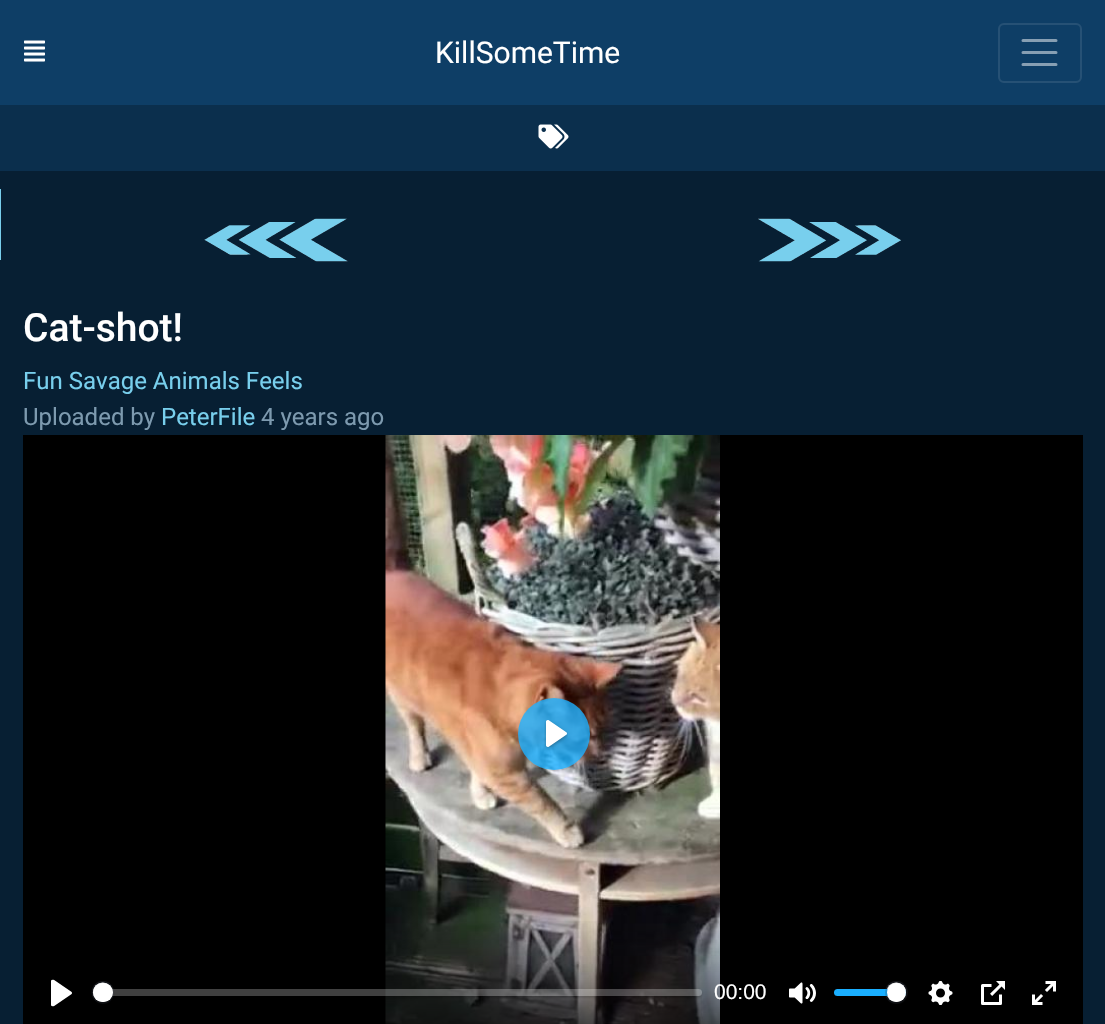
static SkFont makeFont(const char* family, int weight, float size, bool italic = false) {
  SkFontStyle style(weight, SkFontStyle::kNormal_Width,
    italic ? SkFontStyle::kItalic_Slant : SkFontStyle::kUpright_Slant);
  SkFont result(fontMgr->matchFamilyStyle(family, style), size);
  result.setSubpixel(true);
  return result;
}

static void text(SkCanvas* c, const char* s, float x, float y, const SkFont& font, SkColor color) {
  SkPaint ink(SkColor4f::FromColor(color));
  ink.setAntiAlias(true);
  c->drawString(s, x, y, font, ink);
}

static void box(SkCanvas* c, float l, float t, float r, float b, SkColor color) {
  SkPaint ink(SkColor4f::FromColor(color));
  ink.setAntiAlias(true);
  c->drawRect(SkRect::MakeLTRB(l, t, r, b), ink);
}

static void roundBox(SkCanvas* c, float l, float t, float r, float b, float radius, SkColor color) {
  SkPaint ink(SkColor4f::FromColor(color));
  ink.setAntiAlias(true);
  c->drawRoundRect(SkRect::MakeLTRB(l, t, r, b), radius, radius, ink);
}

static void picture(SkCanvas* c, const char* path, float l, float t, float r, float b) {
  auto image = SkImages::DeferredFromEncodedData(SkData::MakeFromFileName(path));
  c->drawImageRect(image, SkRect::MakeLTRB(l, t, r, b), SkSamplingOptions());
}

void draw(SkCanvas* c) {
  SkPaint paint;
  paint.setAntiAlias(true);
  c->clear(0xff071f33);
  box(c, 0, 0, 1105, 105, 0xff0e3e66);
  picture(c, "img_01.png", 24, 40, 45, 62);
  SkFont face1 = makeFont("Roboto", 400, 30);
  text(c, "KillSomeTime", 435, 63, face1, 0xffffffff);
  paint.setStyle(SkPaint::kStroke_Style);
  paint.setStrokeWidth(2);
  paint.setColor(0xff265175);
  c->drawRoundRect(SkRect::MakeLTRB(999, 24, 1081, 82), 5, 5, paint);
  paint.setStrokeWidth(3);
  paint.setStrokeCap(SkPaint::kRound_Cap);
  paint.setColor(0xff879fb3);
  c->drawPath(SkPathBuilder().moveTo(1023, 40.5f).lineTo(1056, 40.5f).moveTo(1023, 52.5f).lineTo(1056, 52.5f).moveTo(1023, 64.5f).lineTo(1056, 64.5f).detach(), paint);
  box(c, 0, 189, 1, 260, 0xff78cfed);
  box(c, 0, 105, 1105, 171, 0xff0b2f4d);
  picture(c, "img_02.png", 538, 124, 569, 149);
  picture(c, "img_03.png", 204, 218, 348, 262);
  picture(c, "img_04.png", 758, 218, 901, 262);
  SkFont face2 = makeFont("Roboto", 500, 39);
  text(c, "Cat-shot!", 23, 341, face2, 0xffffffff);
  SkFont face3 = makeFont("Roboto", 400, 24);
  text(c, "Fun Savage Animals Feels", 23, 389, face3, 0xff78cfed);
  text(c, "Uploaded by", 23, 425, face3, 0xff7d9aaf);
  text(c, "PeterFile", 161, 425, face3, 0xff78cfed);
  text(c, "4 years ago", 261, 425, face3, 0xff7d9aaf);
  box(c, 23, 435, 1083, 1024, 0xff000000);
  picture(c, "img_05.png", 91, 435, 908, 1024);
  c->save();
  c->clipPath(SkPathBuilder(SkPathFillType::kEvenOdd).moveTo(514, 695).lineTo(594, 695).lineTo(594, 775).lineTo(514, 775).close().moveTo(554, 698).cubicTo(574, 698, 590, 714, 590, 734).cubicTo(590, 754, 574, 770, 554, 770).cubicTo(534, 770, 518, 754, 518, 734).cubicTo(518, 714, 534, 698, 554, 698).close().detach(), true);
  paint.setStyle(SkPaint::kFill_Style);
  paint.setColor(0x26000000);
  paint.setMaskFilter(SkMaskFilter::MakeBlur(kNormal_SkBlurStyle, 1));
  c->drawRoundRect(SkRect::MakeLTRB(518, 699, 590, 771), 36, 36, paint);
  paint.setMaskFilter(nullptr);
  c->restore();
  paint.setColor(0xcc1aafff);
  c->drawCircle(554, 734, 36, paint);
  picture(c, "img_06.png", 544, 720, 568, 750);
  {
    const SkColor colors[] = {0x00000000, 0xb3000000};
    const float stops[] = {0, 1};
    const SkPoint ends[] = {{553, 917}, {553, 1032}};
    paint.setShader(SkGradientShader::MakeLinear(ends, colors, stops, 2, SkTileMode::kClamp));
    paint.setAlpha(255);
  }
  c->drawRect(SkRect::MakeLTRB(91, 921, 908, 1024), paint);
  picture(c, "img_07.png", 51, 979, 114, 1007);
  c->save();
  c->clipPath(SkPathBuilder(SkPathFillType::kEvenOdd).moveTo(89, 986).lineTo(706, 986).lineTo(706, 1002).lineTo(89, 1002).close().moveTo(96.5f, 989).lineTo(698.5f, 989).cubicTo(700.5f, 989, 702, 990.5f, 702, 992.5f).cubicTo(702, 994.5f, 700.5f, 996, 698.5f, 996).lineTo(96.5f, 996).cubicTo(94.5f, 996, 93, 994.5f, 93, 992.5f).cubicTo(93, 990.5f, 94.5f, 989, 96.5f, 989).close().detach(), true);
  paint.setShader(nullptr);
  paint.setColor(0x26000000);
  paint.setMaskFilter(SkMaskFilter::MakeBlur(kNormal_SkBlurStyle, 1));
  c->drawRoundRect(SkRect::MakeLTRB(93, 990, 702, 998), 4, 4, paint);
  paint.setMaskFilter(nullptr);
  c->restore();
  roundBox(c, 93, 989, 702, 996, 3.5f, 0x40ffffff);
  paint.setStyle(SkPaint::kStroke_Style);
  paint.setStrokeWidth(2);
  paint.setStrokeCap(SkPaint::kButt_Cap);
  paint.setColor(0x332f343d);
  c->drawRoundRect(SkRect::MakeLTRB(93, 982, 113, 1003), 10, 10, paint);
  paint.setStyle(SkPaint::kFill_Style);
  paint.setColor(0x26000000);
  paint.setMaskFilter(SkMaskFilter::MakeBlur(kNormal_SkBlurStyle, 1));
  c->drawRoundRect(SkRect::MakeLTRB(93, 984, 113, 1004), 10, 10, paint);
  paint.setMaskFilter(nullptr);
  roundBox(c, 93, 983, 113, 1002, 9.5f, 0xffffffff);
  SkFont face4 = makeFont("Liberation Sans", 400, 21);
  text(c, "00:00", 714, 999, face4, 0xffffffff);
  picture(c, "img_08.png", 789, 982, 816, 1004);
  picture(c, "img_09.png", 885, 981, 953, 1005);
  roundBox(c, 834, 989, 906, 996, 3.5f, 0xff1aafff);
  paint.setStyle(SkPaint::kStroke_Style);
  paint.setColor(0x332f343d);
  c->drawCircle(896.5f, 992.5f, 10.5f, paint);
  paint.setStyle(SkPaint::kFill_Style);
  paint.setColor(0x26000000);
  paint.setMaskFilter(SkMaskFilter::MakeBlur(kNormal_SkBlurStyle, 1));
  c->drawRoundRect(SkRect::MakeLTRB(887, 984, 906, 1004), 9.5f, 9.5f, paint);
  paint.setMaskFilter(nullptr);
  paint.setColor(0xffffffff);
  c->drawCircle(896.5f, 992.5f, 9.5f, paint);
  picture(c, "img_10.png", 981, 981, 1005, 1005);
  picture(c, "img_11.png", 1032, 981, 1056, 1005);
}
